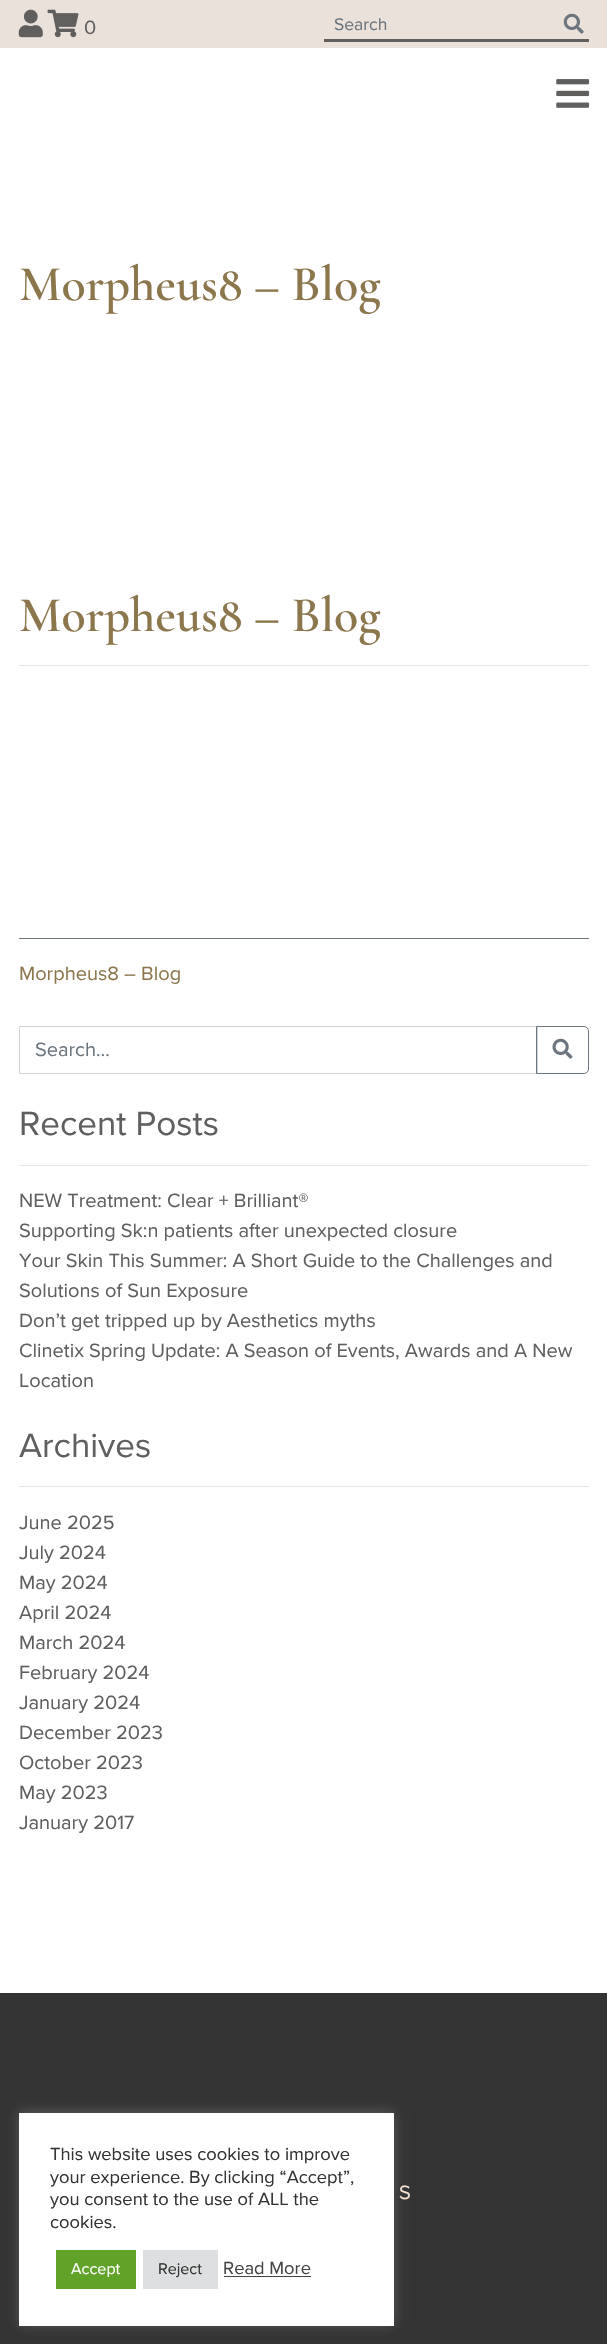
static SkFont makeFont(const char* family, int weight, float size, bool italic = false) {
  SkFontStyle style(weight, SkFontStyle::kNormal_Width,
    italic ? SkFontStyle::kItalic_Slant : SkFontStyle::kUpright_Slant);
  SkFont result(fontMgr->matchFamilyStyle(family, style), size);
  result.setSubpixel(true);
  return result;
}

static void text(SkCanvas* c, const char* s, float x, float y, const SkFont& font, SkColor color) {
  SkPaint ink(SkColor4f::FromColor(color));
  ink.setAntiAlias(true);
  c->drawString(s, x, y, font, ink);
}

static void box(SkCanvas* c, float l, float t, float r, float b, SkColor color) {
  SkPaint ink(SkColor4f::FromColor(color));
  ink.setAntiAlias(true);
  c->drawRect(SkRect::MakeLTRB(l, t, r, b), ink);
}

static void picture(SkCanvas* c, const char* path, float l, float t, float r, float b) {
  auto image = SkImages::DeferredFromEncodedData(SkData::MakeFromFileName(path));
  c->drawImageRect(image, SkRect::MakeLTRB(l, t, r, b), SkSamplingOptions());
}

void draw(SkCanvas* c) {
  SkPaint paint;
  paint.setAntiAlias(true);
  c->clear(0xffffffff);
  box(c, 0, 0, 607, 48, 0xffe9e1da);
  picture(c, "img_01.png", 18, 9, 43, 38);
  picture(c, "img_02.png", 47, 9, 79, 38);
  SkFont face1 = makeFont("Proxima Nova", 400, 20);
  text(c, "0", 84, 34, face1, 0xff615e5e);
  box(c, 324, 39, 589, 42, 0xff615e5e);
  SkFont face2 = makeFont("Proxima Nova", 400, 17.5f);
  text(c, "Search", 334, 30, face2, 0xff6c757d);
  picture(c, "img_03.png", 563, 13, 584, 34);
  picture(c, "img_04.png", 556, 79, 590, 108);
  SkFont face3 = makeFont("Cormorant Garamond", 600, 50);
  text(c, "Morpheus8 – Blog", 19, 300, face3, 0xff8c774d);
  box(c, 19, 938, 589, 939, 0xff6c757d);
  text(c, "Morpheus8 – Blog", 19, 631, face3, 0xff8c774d);
  box(c, 19, 665, 589, 666, 0xffe6e6e6);
  text(c, "Morpheus8 – Blog", 19, 980, face1, 0xff8c774d);
  paint.setStyle(SkPaint::kStroke_Style);
  paint.setStrokeWidth(1);
  paint.setColor(0xffced4da);
  c->drawRect(SkRect::MakeLTRB(19.5f, 1026.5f, 537.5f, 1073.5f), paint);
  text(c, "Search…", 35, 1056, face1, 0xff6c757d);
  paint.setColor(0xff6c757d);
  c->drawPath(SkPathBuilder().moveTo(536.5f, 1026.5f).lineTo(584, 1026.5f).cubicTo(586.5f, 1026.5f, 588.5f, 1028.5f, 588.5f, 1031).lineTo(588.5f, 1069).cubicTo(588.5f, 1071.5f, 586.5f, 1073.5f, 584, 1073.5f).lineTo(536.5f, 1073.5f).close().detach(), paint);
  picture(c, "img_05.png", 552, 1038, 573, 1059);
  box(c, 19, 1165, 589, 1166, 0xffe6e6e6);
  SkFont face4 = makeFont("Proxima Nova", 400, 35);
  text(c, "Recent Posts", 19, 1135, face4, 0xff615e5e);
  text(c, "NEW Treatment: Clear + Brilliant®", 19, 1207, face1, 0xff615e5e);
  text(c, "Supporting Sk:n patients after unexpected closure", 19, 1237, face1, 0xff615e5e);
  text(c, "Your Skin This Summer: A Short Guide to the Challenges and", 19, 1267, face1, 0xff615e5e);
  text(c, "Solutions of Sun Exposure", 19, 1297, face1, 0xff615e5e);
  text(c, "Don’t get tripped up by Aesthetics myths", 19, 1327, face1, 0xff615e5e);
  text(c, "Clinetix Spring Update: A Season of Events, Awards and A New", 19, 1357, face1, 0xff615e5e);
  text(c, "Location", 19, 1387, face1, 0xff615e5e);
  box(c, 19, 1486, 589, 1487, 0xffe6e6e6);
  text(c, "Archives", 19, 1457, face4, 0xff615e5e);
  text(c, "June 2025", 19, 1529, face1, 0xff615e5e);
  text(c, "July 2024", 19, 1559, face1, 0xff615e5e);
  text(c, "May 2024", 19, 1589, face1, 0xff615e5e);
  text(c, "April 2024", 19, 1619, face1, 0xff615e5e);
  text(c, "March 2024", 19, 1649, face1, 0xff615e5e);
  text(c, "February 2024", 19, 1679, face1, 0xff615e5e);
  text(c, "January 2024", 19, 1709, face1, 0xff615e5e);
  text(c, "December 2023", 19, 1739, face1, 0xff615e5e);
  text(c, "October 2023", 19, 1769, face1, 0xff615e5e);
  text(c, "May 2023", 19, 1799, face1, 0xff615e5e);
  text(c, "January 2017", 19, 1829, face1, 0xff615e5e);
  box(c, 0, 1993, 607, 2344, 0xff333333);
  text(c, "S", 399, 2199, face1, 0xfff3e3d5);
  paint.setStyle(SkPaint::kFill_Style);
  paint.setColor(0x4dacabab);
  paint.setMaskFilter(SkMaskFilter::MakeBlur(kNormal_SkBlurStyle, 6));
  c->drawRect(SkRect::MakeLTRB(19, 2111, 394, 2325), paint);
  paint.setMaskFilter(nullptr);
  box(c, 19, 2113, 394, 2326, 0xffffffff);
  SkFont face5 = makeFont("Proxima Nova", 400, 18.3f);
  text(c, "This website uses cookies to improve", 50, 2160, face5, 0xff333333);
  text(c, "your experience. By clicking “Accept”,", 50, 2183, face5, 0xff333333);
  text(c, "you consent to the use of ALL the", 50, 2205, face5, 0xff333333);
  text(c, "cookies.", 50, 2228, face5, 0xff333333);
  box(c, 56, 2250, 136, 2289, 0xff61a229);
  SkFont face6 = makeFont("Proxima Nova", 400, 16);
  text(c, "Accept", 71, 2274, face6, 0xffffffff);
  box(c, 143, 2250, 218, 2289, 0xffdedfe0);
  text(c, "Reject", 158, 2274, face6, 0xff333333);
  text(c, "Read More", 223, 2274, face5, 0xff444444);
  box(c, 224, 2276, 311, 2277, 0xff444444);
}
